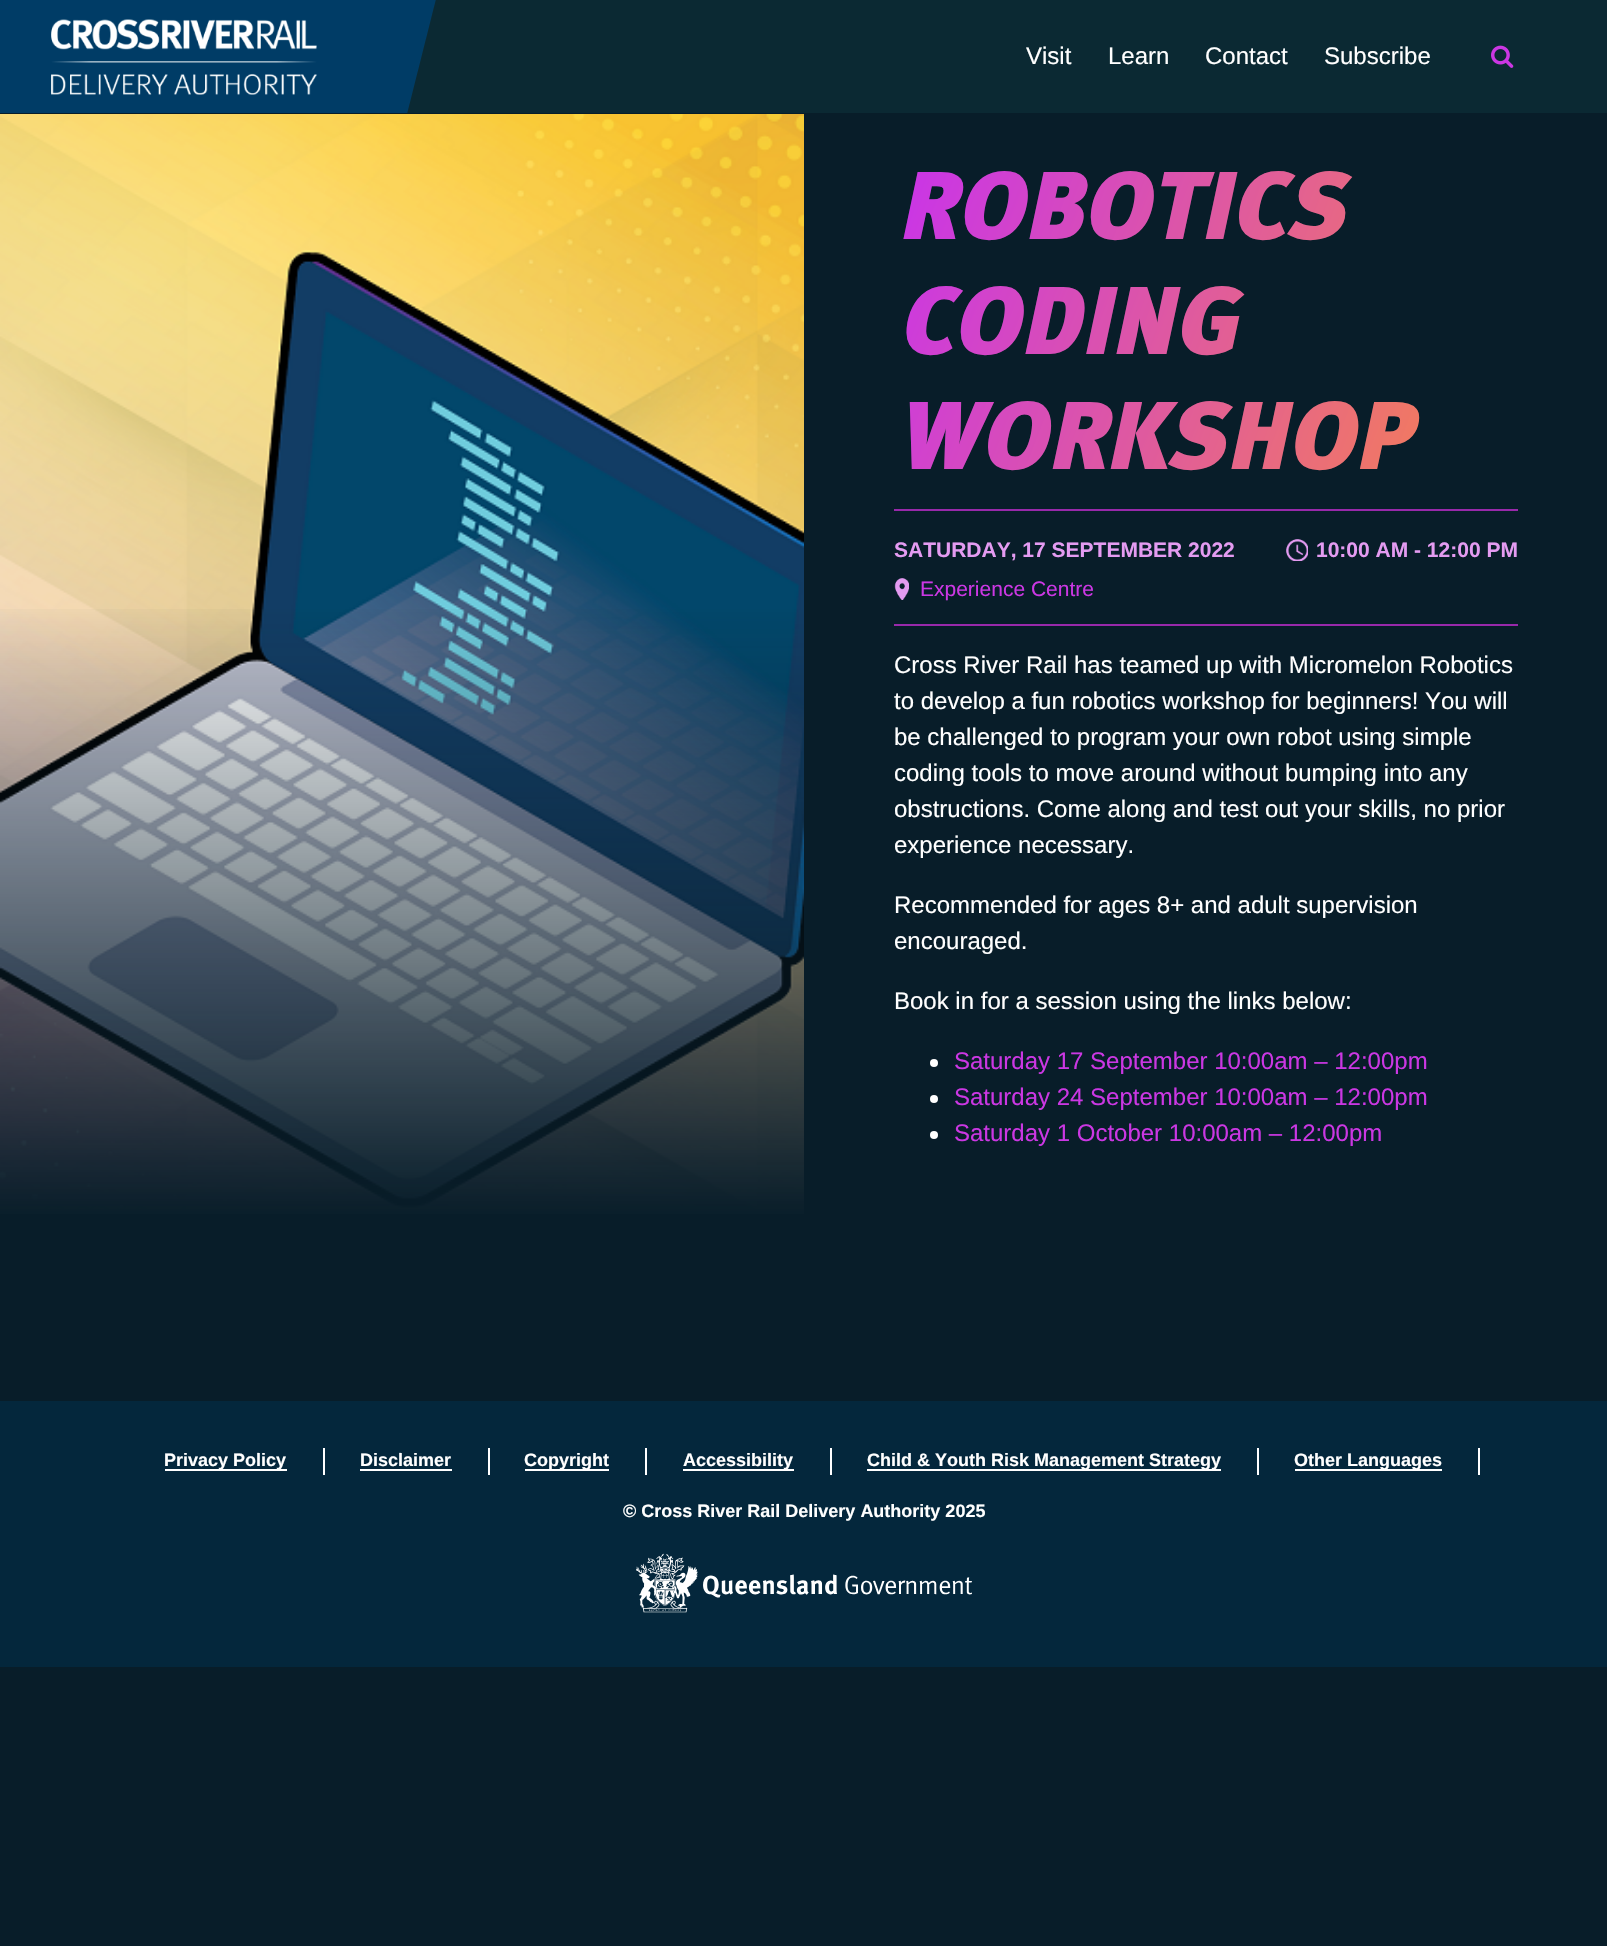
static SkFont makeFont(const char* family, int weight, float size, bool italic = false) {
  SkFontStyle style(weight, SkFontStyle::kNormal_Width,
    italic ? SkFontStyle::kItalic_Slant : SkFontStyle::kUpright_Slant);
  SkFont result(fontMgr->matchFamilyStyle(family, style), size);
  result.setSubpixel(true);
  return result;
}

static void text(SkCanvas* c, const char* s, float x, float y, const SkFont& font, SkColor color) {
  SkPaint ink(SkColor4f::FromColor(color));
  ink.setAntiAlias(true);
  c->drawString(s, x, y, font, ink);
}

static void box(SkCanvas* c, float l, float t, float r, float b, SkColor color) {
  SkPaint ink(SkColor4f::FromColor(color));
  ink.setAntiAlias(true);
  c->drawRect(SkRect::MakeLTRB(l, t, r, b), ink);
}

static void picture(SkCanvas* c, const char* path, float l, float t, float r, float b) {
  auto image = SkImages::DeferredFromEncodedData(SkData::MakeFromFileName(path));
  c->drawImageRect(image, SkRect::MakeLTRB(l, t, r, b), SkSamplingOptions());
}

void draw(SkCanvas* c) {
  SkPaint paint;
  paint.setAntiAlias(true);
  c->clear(0xff081d29);
  box(c, 438, 0, 1607, 113, 0xff0b2933);
  box(c, 0, 0, 436, 113, 0xff003c66);
  picture(c, "img_01.png", 51, 19, 317, 95);
  c->save();
  c->clipRect(SkRect::MakeLTRB(48, 0, 438, 113));
  paint.setColor(0xff0b2933);
  c->drawPath(SkPathBuilder().moveTo(438, -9).lineTo(525, 13).lineTo(492, 144).lineTo(405, 122).close().detach(), paint);
  c->restore();
  SkFont face1 = makeFont("Liberation Sans", 400, 24);
  text(c, "Visit", 1026, 64, face1, 0xffffffff);
  text(c, "Learn", 1108, 64, face1, 0xffffffff);
  text(c, "Contact", 1205, 64, face1, 0xffffffff);
  text(c, "Subscribe", 1324, 64, face1, 0xffffffff);
  picture(c, "img_02.png", 1491, 45, 1514, 68);
  picture(c, "img_03.png", 0, 114, 804, 1214);
  {
    const SkColor colors[] = {0x00081d29, 0xff081d29};
    const float stops[] = {0.38f, 0.87f};
    const SkPoint ends[] = {{402, 114}, {402, 1382}};
    paint.setShader(SkGradientShader::MakeLinear(ends, colors, stops, 2, SkTileMode::kClamp));
    paint.setAlpha(255);
  }
  c->drawRect(SkRect::MakeLTRB(0, 609, 804, 1214), paint);
  box(c, 894, 509, 1518, 511, 0xff9829aa);
  SkFont face2 = makeFont("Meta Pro", 900, 96, true);
  {
    const SkColor colors[] = {0xffcb37e3, 0xfffd8e39};
    const float stops[] = {0.05f, 1};
    const SkPoint ends[] = {{876, 190}, {1604, 469}};
    paint.setShader(SkGradientShader::MakeLinear(ends, colors, stops, 2, SkTileMode::kClamp));
    paint.setAlpha(255);
  }
  c->drawString("ROBOTICS", 902, 239, face2, paint);
  c->drawString("CODING", 902, 354, face2, paint);
  c->drawString("WORKSHOP", 902, 469, face2, paint);
  SkFont face3 = makeFont("Liberation Sans", 700, 21);
  text(c, "SATURDAY, 17 SEPTEMBER 2022", 894, 557, face3, 0xffe49bf1);
  picture(c, "img_04.png", 1286, 539, 1308, 561);
  text(c, "10:00 AM - 12:00 PM", 1316, 557, face3, 0xffe49bf1);
  picture(c, "img_05.png", 894, 578, 909, 600);
  SkFont face4 = makeFont("Liberation Sans", 400, 21);
  text(c, "Experience Centre", 920, 596, face4, 0xffcb37e3);
  box(c, 894, 624, 1518, 626, 0xff9829aa);
  text(c, "Cross River Rail has teamed up with Micromelon Robotics", 894, 673, face1, 0xffffffff);
  text(c, "to develop a fun robotics workshop for beginners! You will", 894, 709, face1, 0xffffffff);
  text(c, "be challenged to program your own robot using simple", 894, 745, face1, 0xffffffff);
  text(c, "coding tools to move around without bumping into any", 894, 781, face1, 0xffffffff);
  text(c, "obstructions. Come along and test out your skills, no prior", 894, 817, face1, 0xffffffff);
  text(c, "experience necessary.", 894, 853, face1, 0xffffffff);
  text(c, "Recommended for ages 8+ and adult supervision", 894, 913, face1, 0xffffffff);
  text(c, "encouraged.", 894, 949, face1, 0xffffffff);
  text(c, "Book in for a session using the links below:", 894, 1009, face1, 0xffffffff);
  paint.setShader(nullptr);
  paint.setColor(0xffffffff);
  c->drawCircle(934, 1063, 4, paint);
  text(c, "Saturday 17 September 10:00am – 12:00pm", 954, 1069, face1, 0xffcb37e3);
  c->drawCircle(934, 1099, 4, paint);
  text(c, "Saturday 24 September 10:00am – 12:00pm", 954, 1105, face1, 0xffcb37e3);
  c->drawCircle(934, 1135, 4, paint);
  text(c, "Saturday 1 October 10:00am – 12:00pm", 954, 1141, face1, 0xffcb37e3);
  box(c, 0, 1401, 1607, 1667, 0xff04273c);
  box(c, 323, 1448, 325, 1475, 0xffffffff);
  box(c, 165, 1469, 287, 1471, 0xffffffff);
  SkFont face5 = makeFont("Liberation Sans", 700, 18);
  text(c, "Privacy Policy", 164, 1466, face5, 0xffffffff);
  box(c, 488, 1448, 490, 1475, 0xffffffff);
  text(c, "Disclaimer", 360, 1466, face5, 0xffffffff);
  box(c, 360, 1469, 452, 1471, 0xffffffff);
  box(c, 645, 1448, 647, 1475, 0xffffffff);
  box(c, 525, 1469, 609, 1471, 0xffffffff);
  text(c, "Copyright", 524, 1466, face5, 0xffffffff);
  box(c, 830, 1448, 832, 1475, 0xffffffff);
  box(c, 683, 1469, 794, 1471, 0xffffffff);
  text(c, "Accessibility", 683, 1466, face5, 0xffffffff);
  box(c, 1257, 1448, 1259, 1475, 0xffffffff);
  box(c, 867, 1469, 1221, 1471, 0xffffffff);
  text(c, "Child & Youth Risk Management Strategy", 867, 1466, face5, 0xffffffff);
  box(c, 1478, 1448, 1480, 1475, 0xffffffff);
  box(c, 1295, 1469, 1442, 1471, 0xffffffff);
  text(c, "Other Languages", 1294, 1466, face5, 0xffffffff);
  text(c, "© Cross River Rail Delivery Authority 2025", 623, 1517, face5, 0xffffffff);
  picture(c, "img_06.png", 636, 1553, 972, 1613);
}
